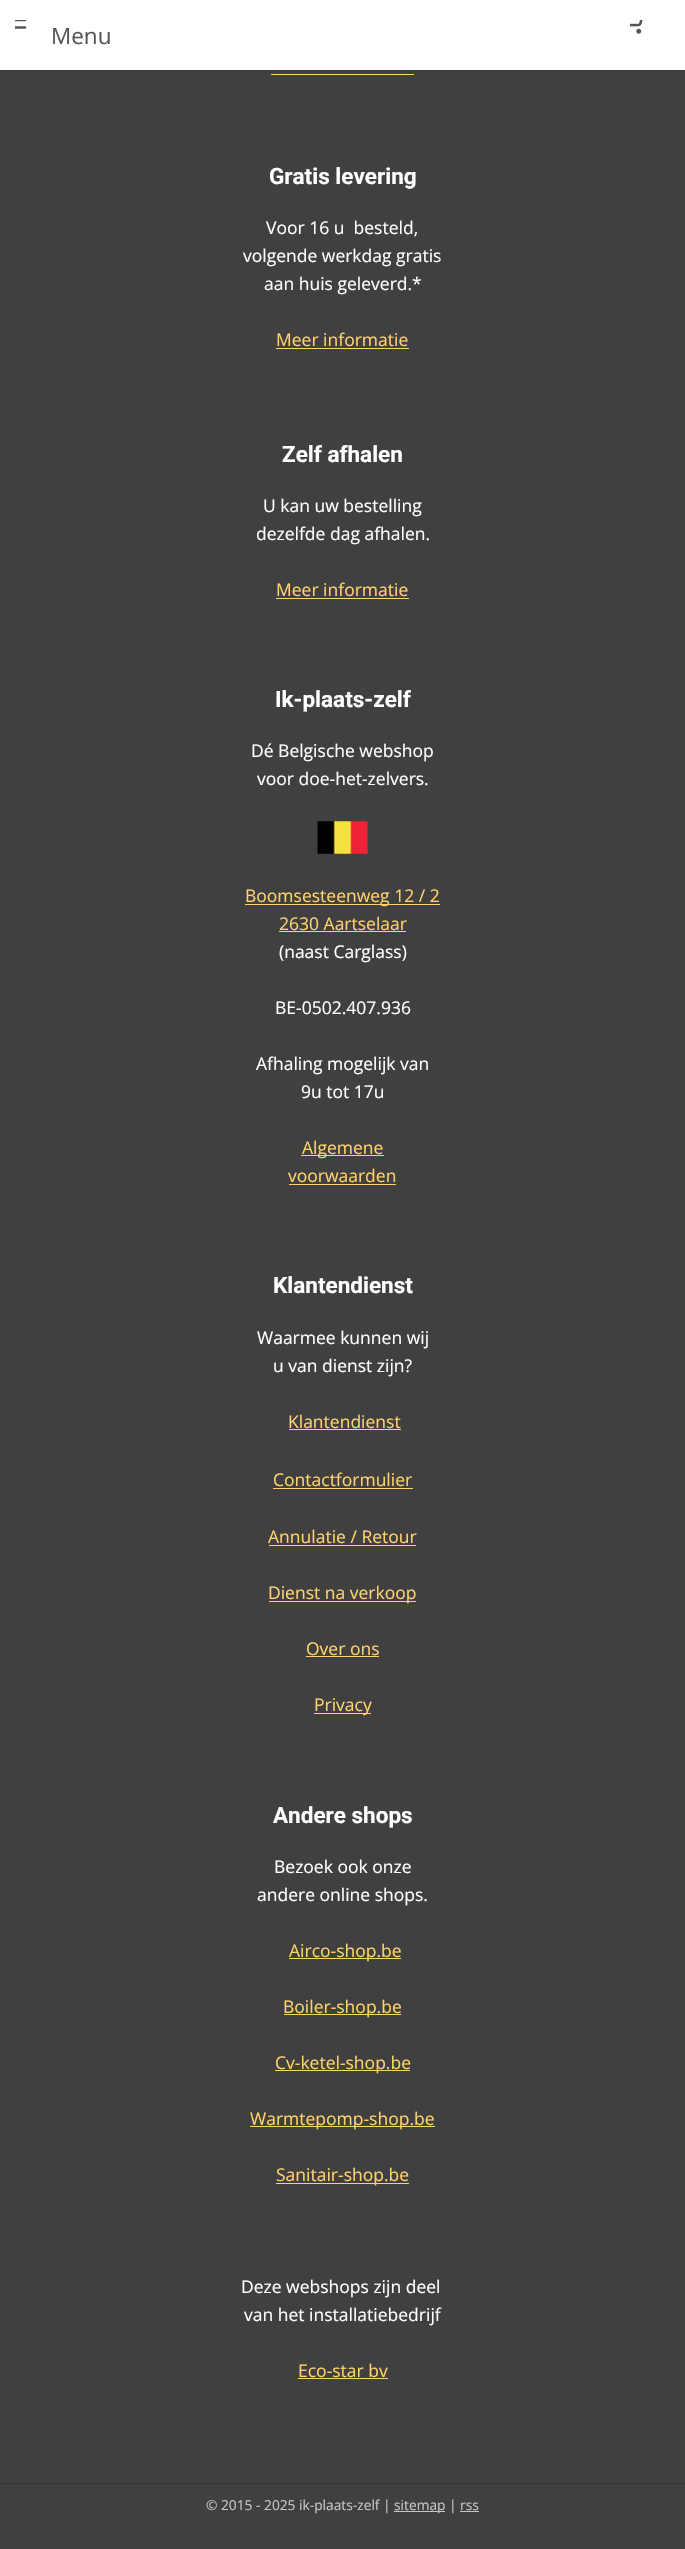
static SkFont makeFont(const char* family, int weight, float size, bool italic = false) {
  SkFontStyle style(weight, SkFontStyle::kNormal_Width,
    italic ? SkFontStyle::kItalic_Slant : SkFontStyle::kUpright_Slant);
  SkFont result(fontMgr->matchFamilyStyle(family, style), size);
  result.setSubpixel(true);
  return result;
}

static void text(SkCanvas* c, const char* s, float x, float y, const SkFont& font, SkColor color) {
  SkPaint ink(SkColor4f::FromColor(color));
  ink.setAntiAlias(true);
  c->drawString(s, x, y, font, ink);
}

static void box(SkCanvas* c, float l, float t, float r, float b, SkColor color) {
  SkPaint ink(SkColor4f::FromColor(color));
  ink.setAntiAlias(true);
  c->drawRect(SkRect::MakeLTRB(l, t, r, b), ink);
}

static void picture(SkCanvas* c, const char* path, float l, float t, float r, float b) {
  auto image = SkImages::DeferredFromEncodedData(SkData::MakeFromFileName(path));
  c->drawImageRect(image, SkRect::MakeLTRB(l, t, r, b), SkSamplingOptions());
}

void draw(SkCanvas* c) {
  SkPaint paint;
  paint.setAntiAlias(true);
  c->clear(0xff404040);
  box(c, 0, 0, 685, 70, 0xffffffff);
  picture(c, "img_01.png", 15, 20, 27, 29);
  SkFont face1 = makeFont("Open Sans", 400, 22.5f);
  text(c, "Menu", 51, 44, face1, 0xff555555);
  picture(c, "img_02.png", 630, 20, 643, 34);
  box(c, 271, 74, 414, 75, 0xffffd26e);
  SkFont face2 = makeFont("Roboto", 700, 22.5f);
  text(c, "Gratis levering", 269, 184, face2, 0xffffffff);
  SkFont face3 = makeFont("Open Sans", 400, 17.5f);
  text(c, "Voor 16 u  besteld,", 266, 234, face3, 0xffffffff);
  text(c, "volgende werkdag gratis", 243, 262, face3, 0xffffffff);
  text(c, "aan huis geleverd.*", 264, 290, face3, 0xffffffff);
  text(c, "Meer informatie", 276, 346, face3, 0xffffd26e);
  box(c, 276, 348, 409, 349, 0xffffd26e);
  text(c, "Zelf afhalen", 282, 462, face2, 0xffffffff);
  text(c, "U kan uw bestelling", 263, 512, face3, 0xffffffff);
  text(c, "dezelfde dag afhalen.", 256, 540, face3, 0xffffffff);
  text(c, "Meer informatie", 276, 596, face3, 0xffffd26e);
  box(c, 276, 598, 409, 599, 0xffffd26e);
  text(c, "Ik-plaats-zelf", 275, 707, face2, 0xffffffff);
  text(c, "Dé Belgische webshop", 251, 757, face3, 0xffffffff);
  text(c, "voor doe-het-zelvers.", 257, 785, face3, 0xffffffff);
  picture(c, "img_03.png", 317, 821, 368, 854);
  box(c, 245, 904, 440, 905, 0xffffd26e);
  text(c, "Boomsesteenweg 12 / 2", 245, 902, face3, 0xffffd26e);
  text(c, "2630 Aartselaar", 279, 930, face3, 0xffffd26e);
  box(c, 279, 931, 406, 932, 0xffffd26e);
  text(c, "(naast Carglass)", 279, 958, face3, 0xffffffff);
  text(c, "BE-0502.407.936", 275, 1014, face3, 0xffffffff);
  text(c, "Afhaling mogelijk van", 256, 1070, face3, 0xffffffff);
  text(c, "9u tot 17u", 301, 1098, face3, 0xffffffff);
  box(c, 301, 1155, 384, 1156, 0xffffd26e);
  text(c, "Algemene", 302, 1154, face3, 0xffffd26e);
  text(c, "voorwaarden", 288, 1182, face3, 0xffffd26e);
  box(c, 289, 1184, 396, 1185, 0xffffd26e);
  text(c, "Klantendienst", 273, 1293, face2, 0xffffffff);
  text(c, "Waarmee kunnen wij", 257, 1344, face3, 0xffffffff);
  text(c, "u van dienst zijn?", 273, 1372, face3, 0xffffffff);
  text(c, "Klantendienst", 288, 1428, face3, 0xffffd26e);
  box(c, 289, 1429, 401, 1430, 0xffffd26e);
  text(c, "Contactformulier", 273, 1486, face3, 0xffffd26e);
  box(c, 273, 1488, 413, 1489, 0xffffd26e);
  text(c, "Annulatie / Retour", 268, 1543, face3, 0xffffd26e);
  box(c, 269, 1545, 416, 1546, 0xffffd26e);
  box(c, 269, 1601, 416, 1602, 0xffffd26e);
  text(c, "Dienst na verkoop", 268, 1599, face3, 0xffffd26e);
  text(c, "Over ons", 306, 1655, face3, 0xffffd26e);
  box(c, 306, 1656, 379, 1657, 0xffffd26e);
  box(c, 314, 1713, 371, 1714, 0xffffd26e);
  text(c, "Privacy", 314, 1711, face3, 0xffffd26e);
  text(c, "Andere shops", 273, 1823, face2, 0xffffffff);
  text(c, "Bezoek ook onze", 274, 1873, face3, 0xffffffff);
  text(c, "andere online shops.", 257, 1901, face3, 0xffffffff);
  box(c, 289, 1958, 401, 1959, 0xffffd26e);
  text(c, "Airco-shop.be", 289, 1957, face3, 0xffffd26e);
  box(c, 284, 2014, 401, 2015, 0xffffd26e);
  text(c, "Boiler-shop.be", 283, 2013, face3, 0xffffd26e);
  box(c, 275, 2070, 410, 2071, 0xffffd26e);
  text(c, "Cv-ketel-shop.be", 275, 2069, face3, 0xffffd26e);
  box(c, 250, 2126, 435, 2127, 0xffffd26e);
  text(c, "Warmtepomp-shop.be", 250, 2125, face3, 0xffffd26e);
  box(c, 276, 2183, 409, 2184, 0xffffd26e);
  text(c, "Sanitair-shop.be", 276, 2181, face3, 0xffffd26e);
  text(c, "Deze webshops zijn deel", 241, 2293, face3, 0xffffffff);
  text(c, "van het installatiebedrijf", 244, 2321, face3, 0xffffffff);
  text(c, "Eco-star bv", 298, 2377, face3, 0xffffd26e);
  box(c, 298, 2378, 388, 2379, 0xffffd26e);
  box(c, 0, 2483, 685, 2484, 0xff363636);
  SkFont face4 = makeFont("Open Sans", 400, 13.75f);
  text(c, "© 2015 - 2025 ik-plaats-zelf |", 206, 2510, face4, 0xffc6c6c6);
  box(c, 394, 2511, 445, 2512, 0xffc6c6c6);
  text(c, "sitemap | rss", 394, 2510, face4, 0xffc6c6c6);
  box(c, 460, 2511, 479, 2512, 0xffc6c6c6);
}
